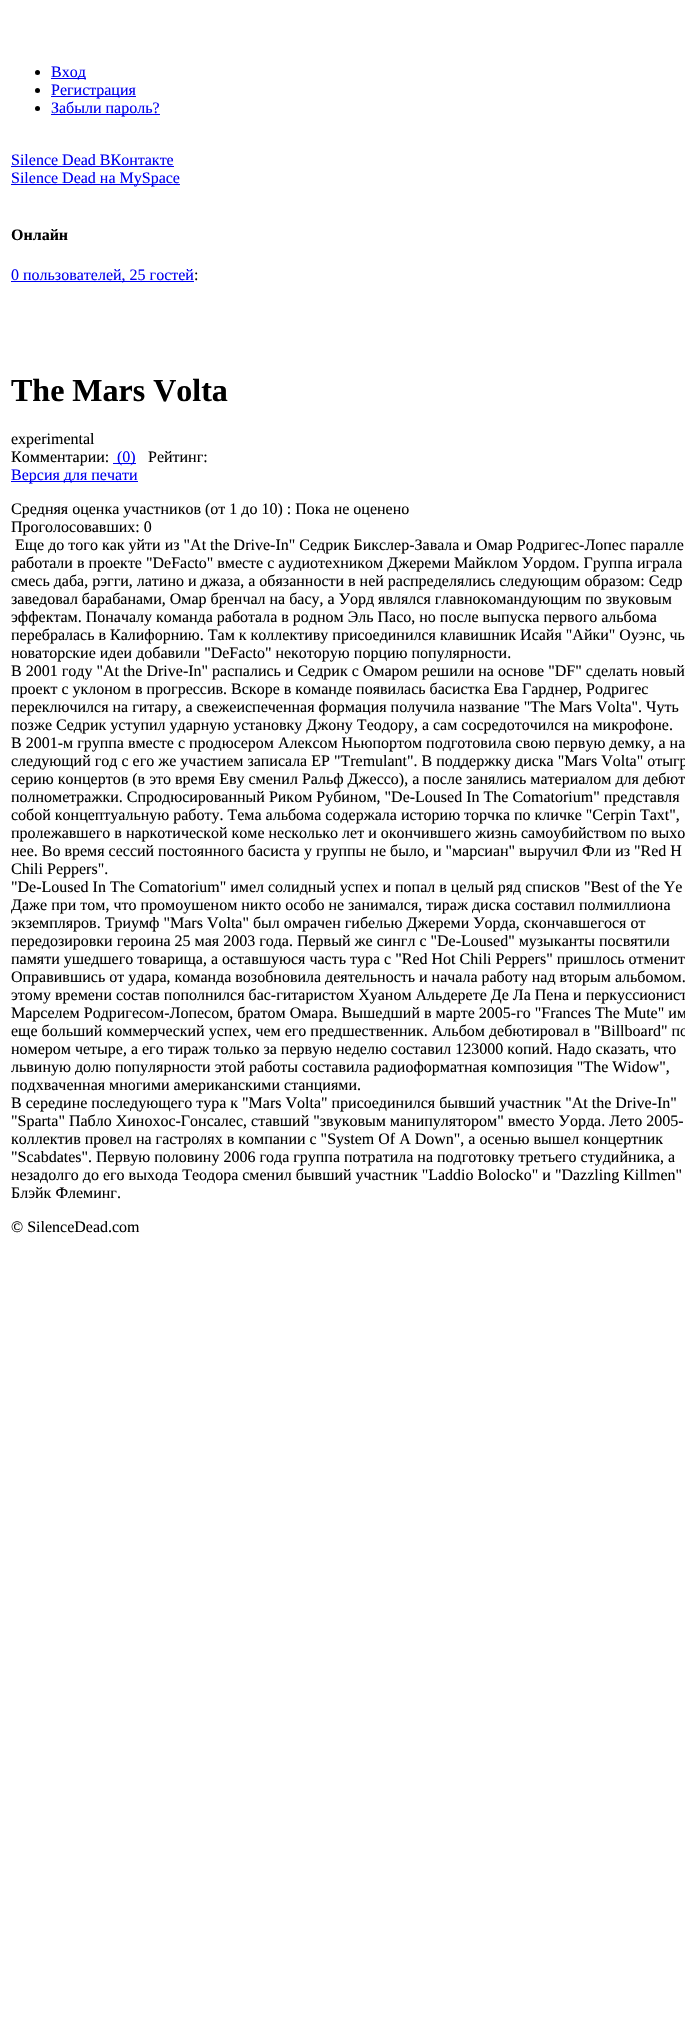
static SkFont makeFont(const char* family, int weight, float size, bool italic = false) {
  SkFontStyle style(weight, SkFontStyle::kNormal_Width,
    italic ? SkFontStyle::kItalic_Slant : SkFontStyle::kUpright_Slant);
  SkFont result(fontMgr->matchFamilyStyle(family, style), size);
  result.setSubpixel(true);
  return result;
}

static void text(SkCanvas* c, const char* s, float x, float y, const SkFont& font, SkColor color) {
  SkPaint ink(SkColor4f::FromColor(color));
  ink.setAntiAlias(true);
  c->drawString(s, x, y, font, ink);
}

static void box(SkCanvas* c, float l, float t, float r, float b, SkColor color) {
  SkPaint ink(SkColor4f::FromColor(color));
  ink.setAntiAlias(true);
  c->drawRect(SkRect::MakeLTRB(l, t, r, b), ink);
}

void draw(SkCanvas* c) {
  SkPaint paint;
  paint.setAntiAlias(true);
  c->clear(0xffffffff);
  paint.setColor(0xff000000);
  c->drawCircle(37.5f, 72.5f, 2.5f, paint);
  box(c, 51, 78, 86, 79, 0xff0000ee);
  SkFont face1 = makeFont("Liberation Serif", 400, 16);
  text(c, "Вход", 51, 77, face1, 0xff0000ee);
  c->drawCircle(37.5f, 90.5f, 2.5f, paint);
  box(c, 51, 96, 136, 97, 0xff0000ee);
  text(c, "Регистрация", 51, 95, face1, 0xff0000ee);
  c->drawCircle(37.5f, 108.5f, 2.5f, paint);
  box(c, 51, 114, 160, 115, 0xff0000ee);
  text(c, "Забыли пароль?", 51, 113, face1, 0xff0000ee);
  text(c, "Silence Dead ВКонтакте", 11, 165, face1, 0xff0000ee);
  box(c, 11, 166, 174, 167, 0xff0000ee);
  box(c, 11, 184, 180, 185, 0xff0000ee);
  text(c, "Silence Dead на MySpace", 11, 183, face1, 0xff0000ee);
  SkFont face2 = makeFont("Liberation Serif", 700, 16);
  text(c, "Онлайн", 11, 240, face2, 0xff000000);
  box(c, 11, 281, 194, 282, 0xff0000ee);
  text(c, "0 пользователей, 25 гостей", 11, 280, face1, 0xff0000ee);
  text(c, ":", 194, 280, face1, 0xff000000);
  SkFont face3 = makeFont("Liberation Serif", 700, 32);
  text(c, "The Mars Volta", 11, 401, face3, 0xff000000);
  text(c, "experimental", 11, 444, face1, 0xff000000);
  text(c, "Комментарии:", 11, 462, face1, 0xff000000);
  box(c, 113, 463, 136, 464, 0xff0000ee);
  text(c, "(0)", 117, 462, face1, 0xff0000ee);
  text(c, "Рейтинг:", 148, 462, face1, 0xff000000);
  box(c, 11, 481, 138, 482, 0xff0000ee);
  text(c, "Версия для печати", 11, 480, face1, 0xff0000ee);
  text(c, "Средняя оценка участников (от 1 до 10) : Пока не оценено", 11, 514, face1, 0xff000000);
  text(c, "Проголосовавших: 0", 11, 532, face1, 0xff000000);
  text(c, "Еще до того как уйти из \"At the Drive-In\" Седрик Бикслер-Завала и Омар Родригес-Лопес паралле", 15, 550, face1, 0xff000000);
  text(c, "работали в проекте \"DeFacto\" вместе с аудиотехником Джереми Майклом Уордом. Группа играла", 11, 568, face1, 0xff000000);
  text(c, "смесь даба, рэгги, латино и джаза, а обязанности в ней распределялись следующим образом: Седр", 11, 586, face1, 0xff000000);
  text(c, "заведовал барабанами, Омар бренчал на басу, а Уорд являлся главнокомандующим по звуковым", 11, 604, face1, 0xff000000);
  text(c, "эффектам. Поначалу команда работала в родном Эль Пасо, но после выпуска первого альбома", 11, 622, face1, 0xff000000);
  text(c, "перебралась в Калифорнию. Там к коллективу присоединился клавишник Исайя \"Айки\" Оуэнс, чь", 11, 640, face1, 0xff000000);
  text(c, "новаторские идеи добавили \"DeFacto\" некоторую порцию популярности.", 11, 658, face1, 0xff000000);
  text(c, "В 2001 году \"At the Drive-In\" распались и Седрик с Омаром решили на основе \"DF\" сделать новый", 11, 676, face1, 0xff000000);
  text(c, "проект с уклоном в прогрессив. Вскоре в команде появилась басистка Ева Гарднер, Родригес", 11, 694, face1, 0xff000000);
  text(c, "переключился на гитару, а свежеиспеченная формация получила название \"The Mars Volta\". Чуть", 11, 712, face1, 0xff000000);
  text(c, "позже Седрик уступил ударную установку Джону Теодору, а сам сосредоточился на микрофоне.", 11, 730, face1, 0xff000000);
  text(c, "В 2001-м группа вместе с продюсером Алексом Ньюпортом подготовила свою первую демку, а на", 11, 748, face1, 0xff000000);
  text(c, "следующий год с его же участием записала EP \"Tremulant\". В поддержку диска \"Mars Volta\" отыгр", 11, 766, face1, 0xff000000);
  text(c, "серию концертов (в это время Еву сменил Ральф Джессо), а после занялись материалом для дебют", 11, 784, face1, 0xff000000);
  text(c, "полнометражки. Спродюсированный Риком Рубином, \"De-Loused In The Comatorium\" представля", 11, 802, face1, 0xff000000);
  text(c, "собой концептуальную работу. Тема альбома содержала историю торчка по кличке \"Cerpin Taxt\",", 11, 820, face1, 0xff000000);
  text(c, "пролежавшего в наркотической коме несколько лет и окончившего жизнь самоубийством по выхо", 11, 838, face1, 0xff000000);
  text(c, "нее. Во время сессий постоянного басиста у группы не было, и \"марсиан\" выручил Фли из \"Red H", 11, 856, face1, 0xff000000);
  text(c, "Chili Peppers\".", 11, 874, face1, 0xff000000);
  text(c, "\"De-Loused In The Comatorium\" имел солидный успех и попал в целый ряд списков \"Best of the Ye", 11, 892, face1, 0xff000000);
  text(c, "Даже при том, что промоушеном никто особо не занимался, тираж диска составил полмиллиона", 11, 910, face1, 0xff000000);
  text(c, "экземпляров. Триумф \"Mars Volta\" был омрачен гибелью Джереми Уорда, скончавшегося от", 11, 928, face1, 0xff000000);
  text(c, "передозировки героина 25 мая 2003 года. Первый же сингл с \"De-Loused\" музыканты посвятили", 11, 946, face1, 0xff000000);
  text(c, "памяти ушедшего товарища, а оставшуюся часть тура с \"Red Hot Chili Peppers\" пришлось отменит", 11, 964, face1, 0xff000000);
  text(c, "Оправившись от удара, команда возобновила деятельность и начала работу над вторым альбомом.", 11, 982, face1, 0xff000000);
  text(c, "этому времени состав пополнился бас-гитаристом Хуаном Альдерете Де Ла Пена и перкуссионист", 11, 1000, face1, 0xff000000);
  text(c, "Марселем Родригесом-Лопесом, братом Омара. Вышедший в марте 2005-го \"Frances The Mute\" им", 11, 1018, face1, 0xff000000);
  text(c, "еще больший коммерческий успех, чем его предшественник. Альбом дебютировал в \"Billboard\" по", 11, 1036, face1, 0xff000000);
  text(c, "номером четыре, а его тираж только за первую неделю составил 123000 копий. Надо сказать, что", 11, 1054, face1, 0xff000000);
  text(c, "львиную долю популярности этой работы составила радиоформатная композиция \"The Widow\",", 11, 1072, face1, 0xff000000);
  text(c, "подхваченная многими американскими станциями.", 11, 1090, face1, 0xff000000);
  text(c, "В середине последующего тура к \"Mars Volta\" присоединился бывший участник \"At the Drive-In\"", 11, 1108, face1, 0xff000000);
  text(c, "\"Sparta\" Пабло Хинохос-Гонсалес, ставший \"звуковым манипулятором\" вместо Уорда. Лето 2005-", 11, 1126, face1, 0xff000000);
  text(c, "коллектив провел на гастролях в компании с \"System Of A Down\", а осенью вышел концертник", 11, 1144, face1, 0xff000000);
  text(c, "\"Scabdates\". Первую половину 2006 года группа потратила на подготовку третьего студийника, а", 11, 1162, face1, 0xff000000);
  text(c, "незадолго до его выхода Теодора сменил бывший участник \"Laddio Bolocko\" и \"Dazzling Killmen\"", 11, 1180, face1, 0xff000000);
  text(c, "Блэйк Флеминг.", 11, 1198, face1, 0xff000000);
  text(c, "© SilenceDead.com", 11, 1232, face1, 0xff000000);
}
